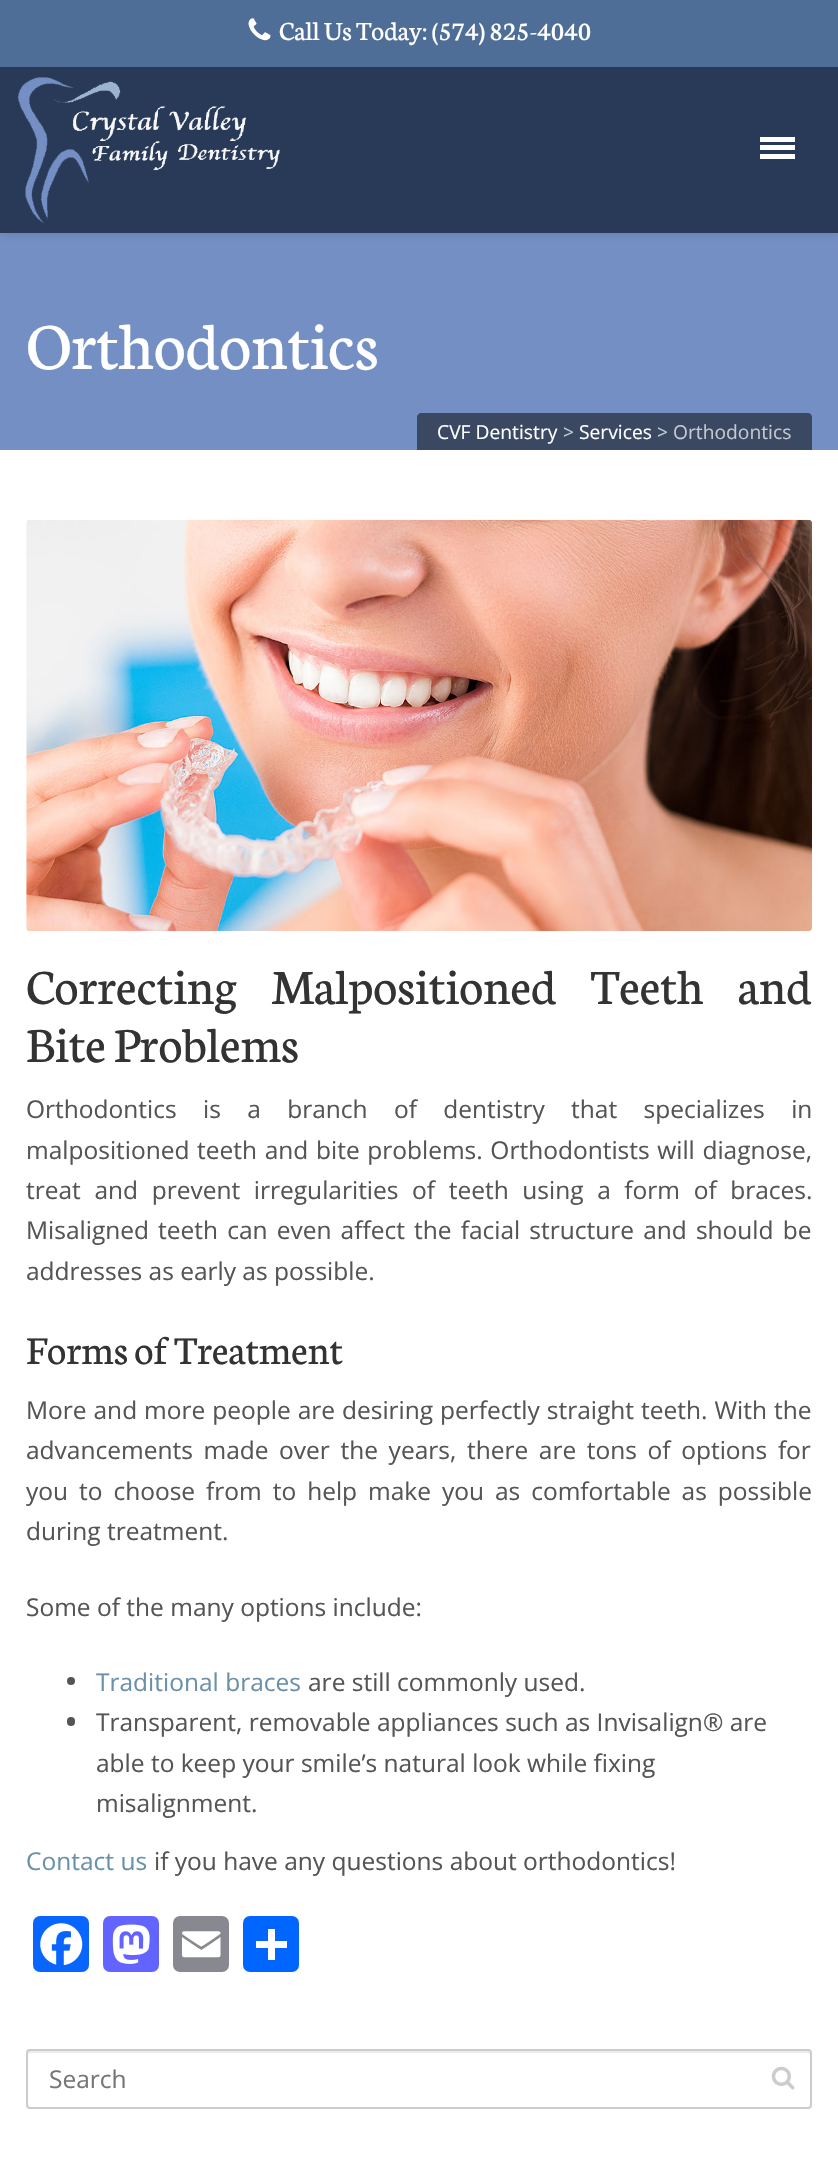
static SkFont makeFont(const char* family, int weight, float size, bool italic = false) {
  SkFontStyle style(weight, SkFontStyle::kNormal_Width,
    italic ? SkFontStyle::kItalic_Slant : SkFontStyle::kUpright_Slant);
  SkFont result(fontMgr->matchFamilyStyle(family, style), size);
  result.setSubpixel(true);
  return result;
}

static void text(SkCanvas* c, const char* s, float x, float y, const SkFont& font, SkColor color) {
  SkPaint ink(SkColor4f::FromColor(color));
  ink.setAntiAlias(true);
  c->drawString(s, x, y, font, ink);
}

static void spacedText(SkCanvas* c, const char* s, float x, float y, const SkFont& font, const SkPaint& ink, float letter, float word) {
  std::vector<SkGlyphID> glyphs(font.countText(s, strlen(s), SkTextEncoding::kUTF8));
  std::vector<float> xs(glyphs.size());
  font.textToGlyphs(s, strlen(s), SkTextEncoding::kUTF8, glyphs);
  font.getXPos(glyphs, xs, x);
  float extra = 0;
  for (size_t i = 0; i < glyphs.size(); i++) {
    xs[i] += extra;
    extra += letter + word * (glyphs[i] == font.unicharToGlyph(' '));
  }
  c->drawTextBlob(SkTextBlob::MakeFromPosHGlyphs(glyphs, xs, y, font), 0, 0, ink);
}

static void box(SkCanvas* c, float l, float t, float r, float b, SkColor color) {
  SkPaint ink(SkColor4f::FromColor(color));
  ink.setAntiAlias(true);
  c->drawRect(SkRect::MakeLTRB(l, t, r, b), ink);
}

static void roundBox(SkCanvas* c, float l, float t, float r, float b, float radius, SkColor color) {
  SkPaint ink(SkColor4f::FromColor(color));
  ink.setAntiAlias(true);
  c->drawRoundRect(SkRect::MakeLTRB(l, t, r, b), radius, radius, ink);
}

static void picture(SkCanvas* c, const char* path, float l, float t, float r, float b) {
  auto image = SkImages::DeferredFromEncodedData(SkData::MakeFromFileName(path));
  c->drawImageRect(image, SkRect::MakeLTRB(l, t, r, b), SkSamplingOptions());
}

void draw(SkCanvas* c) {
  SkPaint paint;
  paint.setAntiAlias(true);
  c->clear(0xffffffff);
  box(c, 0, 0, 838, 67, 0xff4f6e97);
  picture(c, "img_01.png", 248, 18, 271, 41);
  SkFont face1 = makeFont("Neuton", 400, 28);
  text(c, "Call Us Today: (574) 825-4040", 279, 40, face1, 0xffffffff);
  box(c, 0, 67, 838, 233, 0xff283a57);
  box(c, 760, 137, 795, 142, 0xffffffff);
  box(c, 760, 145, 795, 150, 0xffffffff);
  box(c, 760, 154, 795, 159, 0xffffffff);
  box(c, 0, 233, 838, 450, 0xff748fc4);
  c->save();
  c->clipRect(SkRect::MakeLTRB(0, 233, 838, 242));
  paint.setColor(0x1a000000);
  paint.setMaskFilter(SkMaskFilter::MakeBlur(kNormal_SkBlurStyle, 3.5f));
  c->drawRoundRect(SkRect::MakeLTRB(0, 226, 838, 235), 4.5f, 4.5f, paint);
  paint.setMaskFilter(nullptr);
  c->restore();
  picture(c, "img_02.png", 17, 77, 280, 224);
  SkFont face2 = makeFont("Neuton", 400, 70);
  text(c, "Orthodontics", 26, 369, face2, 0xffffffff);
  paint.setColor(0xff3a4862);
  c->drawPath(SkPathBuilder().moveTo(421, 413).lineTo(808, 413).cubicTo(810, 413, 812, 415, 812, 417).lineTo(812, 450).lineTo(417, 450).lineTo(417, 417).cubicTo(417, 415, 419, 413, 421, 413).close().detach(), paint);
  SkFont face3 = makeFont("Open Sans", 400, 19.25f);
  text(c, "CVF Dentistry", 437, 439, face3, 0xffffffff);
  text(c, ">", 563, 439, face3, 0xffc4c8d0);
  text(c, "Services", 579, 439, face3, 0xffffffff);
  text(c, "> Orthodontics", 657, 439, face3, 0xffc4c8d0);
  picture(c, "img_03.png", 26, 519, 812, 931);
  SkFont face4 = makeFont("Neuton", 400, 52.5f);
  paint.setColor(0xff333333);
  spacedText(c, "Correcting Malpositioned Teeth and", 26, 1004, face4, paint, 0, 26.5f);
  text(c, "Bite Problems", 26, 1062, face4, 0xff333333);
  SkFont face5 = makeFont("Open Sans", 400, 24.5f);
  paint.setColor(0xff555555);
  spacedText(c, "Orthodontics is a branch of dentistry that specializes in", 26, 1118, face5, paint, 0, 20);
  spacedText(c, "malpositioned teeth and bite problems. Orthodontists will diagnose,", 26, 1159, face5, paint, 0, 1.25f);
  spacedText(c, "treat and prevent irregularities of teeth using a form of braces.", 26, 1199, face5, paint, 0, 7.25f);
  spacedText(c, "Misaligned teeth can even affect the facial structure and should be", 26, 1239, face5, paint, 0, 2.75f);
  text(c, "addresses as early as possible.", 26, 1280, face5, 0xff555555);
  SkFont face6 = makeFont("Neuton", 400, 42);
  text(c, "Forms of Treatment", 26, 1364, face6, 0xff333333);
  spacedText(c, "More and more people are desiring perfectly straight teeth. With the", 26, 1419, face5, paint, 0, 0.6f);
  spacedText(c, "advancements made over the years, there are tons of options for", 26, 1459, face5, paint, 0, 4.25f);
  spacedText(c, "you to choose from to help make you as comfortable as possible", 26, 1500, face5, paint, 0, 4.6f);
  text(c, "during treatment.", 26, 1540, face5, 0xff555555);
  text(c, "Some of the many options include:", 26, 1616, face5, 0xff555555);
  c->drawCircle(71, 1681, 4, paint);
  text(c, "Traditional braces", 96, 1691, face5, 0xff6a91a9);
  text(c, "are still commonly used.", 308, 1691, face5, 0xff555555);
  roundBox(c, 67, 1717, 75, 1726, 4, 0xff555555);
  text(c, "Transparent, removable appliances such as Invisalign® are", 96, 1731, face5, 0xff555555);
  text(c, "able to keep your smile’s natural look while fixing", 96, 1772, face5, 0xff555555);
  text(c, "misalignment.", 96, 1812, face5, 0xff555555);
  text(c, "Contact us", 26, 1870, face5, 0xff6a91a9);
  text(c, "if you have any questions about orthodontics!", 154, 1870, face5, 0xff555555);
  roundBox(c, 33, 1916, 89, 1972, 7, 0xff0866ff);
  picture(c, "img_04.png", 40, 1923, 83, 1965);
  roundBox(c, 103, 1916, 159, 1972, 7, 0xff6364ff);
  picture(c, "img_05.png", 112, 1924, 150, 1964);
  roundBox(c, 173, 1916, 229, 1972, 7, 0xff888990);
  picture(c, "img_06.png", 182, 1931, 221, 1958);
  roundBox(c, 243, 1916, 299, 1972, 7, 0xff0166ff);
  box(c, 268, 1929, 275, 1960, 0xffffffff);
  box(c, 256, 1941, 287, 1948, 0xffffffff);
  paint.setColor(0xffececec);
  c->drawPath(SkPathBuilder().moveTo(30, 2053).lineTo(808, 2053).lineTo(810, 2054).cubicTo(810, 2053, 810, 2051, 808, 2051).lineTo(30, 2051).cubicTo(28, 2051, 28, 2053, 28, 2054).close().detach(), paint);
  paint.setStyle(SkPaint::kStroke_Style);
  paint.setStrokeWidth(2);
  paint.setColor(0xffcccccc);
  c->drawRoundRect(SkRect::MakeLTRB(27, 2050, 811, 2108), 3, 3, paint);
  text(c, "Search", 49, 2088, face5, 0xff757575);
  picture(c, "img_07.png", 771, 2066, 795, 2090);
}
